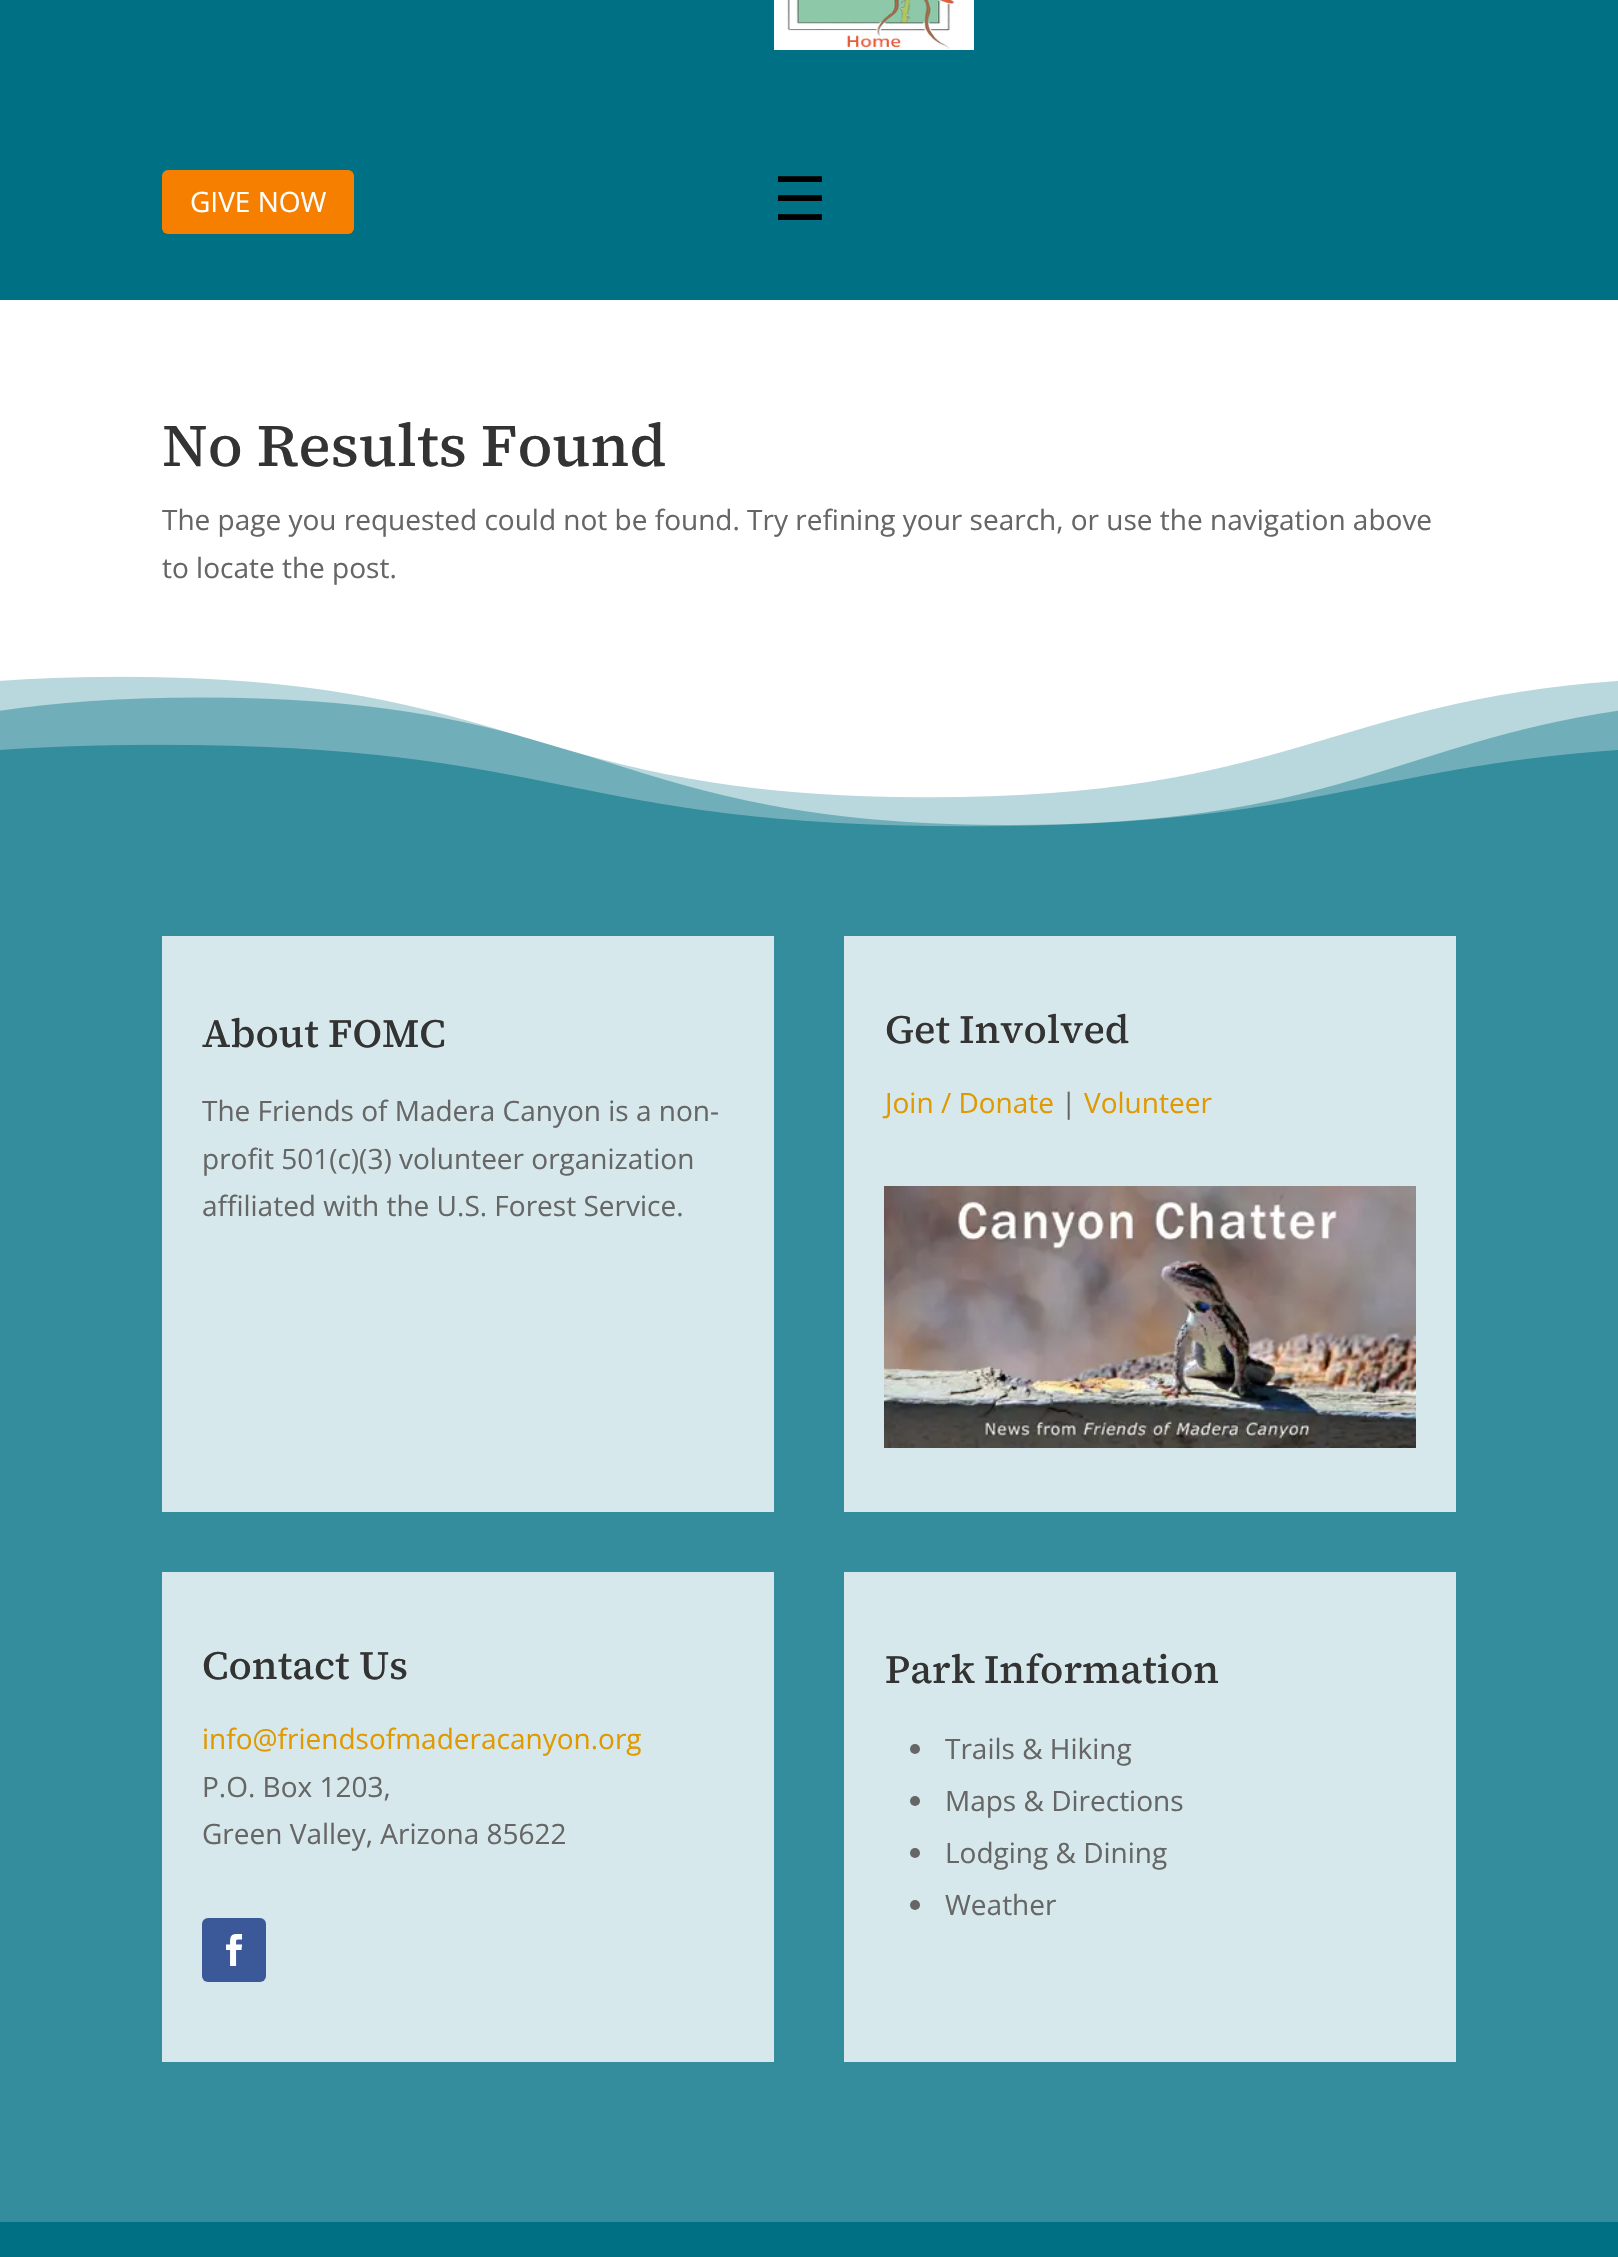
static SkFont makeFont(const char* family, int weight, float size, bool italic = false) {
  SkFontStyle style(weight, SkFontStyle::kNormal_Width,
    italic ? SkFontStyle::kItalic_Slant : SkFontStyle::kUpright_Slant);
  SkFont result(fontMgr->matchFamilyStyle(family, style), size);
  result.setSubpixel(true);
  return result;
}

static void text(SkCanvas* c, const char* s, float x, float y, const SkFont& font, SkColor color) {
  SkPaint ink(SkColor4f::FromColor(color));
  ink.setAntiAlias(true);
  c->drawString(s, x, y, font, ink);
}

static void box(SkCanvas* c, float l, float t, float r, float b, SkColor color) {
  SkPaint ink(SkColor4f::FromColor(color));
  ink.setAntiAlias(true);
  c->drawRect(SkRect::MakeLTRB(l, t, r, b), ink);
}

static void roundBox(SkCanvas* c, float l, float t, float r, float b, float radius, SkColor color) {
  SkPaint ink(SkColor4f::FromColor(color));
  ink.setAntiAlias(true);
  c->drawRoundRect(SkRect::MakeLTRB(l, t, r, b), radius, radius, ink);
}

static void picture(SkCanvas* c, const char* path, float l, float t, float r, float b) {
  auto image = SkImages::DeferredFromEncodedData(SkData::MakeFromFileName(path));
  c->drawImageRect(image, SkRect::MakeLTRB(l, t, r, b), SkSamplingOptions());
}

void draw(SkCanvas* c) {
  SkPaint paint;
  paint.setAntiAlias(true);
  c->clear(0xffffffff);
  box(c, 0, 0, 1618, 300, 0xff007084);
  picture(c, "img_01.png", 774, 0, 974, 50);
  roundBox(c, 162, 170, 354, 234, 6, 0xfff77f00);
  SkFont face1 = makeFont("Open Sans", 400, 28);
  text(c, "GIVE NOW", 190, 212, face1, 0xffffffff);
  SkFont face2 = makeFont("DejaVu Sans", 400, 60);
  text(c, "☰", 773, 220, face2, 0xff000000);
  SkFont face3 = makeFont("Source Serif 4", 500, 60);
  text(c, "No Results Found", 162, 466, face3, 0xff333333);
  text(c, "The page you requested could not be found. Try refining your search, or use the navigation above", 162, 530, face1, 0xff666666);
  text(c, "to locate the post.", 162, 578, face1, 0xff666666);
  box(c, 0, 676, 1618, 2222, 0xff338d9d);
  picture(c, "img_02.png", 0, 676, 1618, 827);
  box(c, 162, 936, 774, 1512, 0xffd6e8eb);
  SkFont face4 = makeFont("Source Serif 4", 500, 40);
  text(c, "About FOMC", 202, 1047, face4, 0xff333333);
  text(c, "The Friends of Madera Canyon is a non-", 202, 1121, face1, 0xff666666);
  text(c, "profit 501(c)(3) volunteer organization", 202, 1169, face1, 0xff666666);
  text(c, "affiliated with the U.S. Forest Service.", 202, 1216, face1, 0xff666666);
  box(c, 844, 936, 1456, 1512, 0xffd6e8eb);
  text(c, "Get Involved", 885, 1043, face4, 0xff333333);
  text(c, "Join / Donate", 885, 1113, face1, 0xffe09900);
  text(c, "|", 1061, 1113, face1, 0xff666666);
  text(c, "Volunteer", 1084, 1113, face1, 0xffe09900);
  picture(c, "img_03.png", 884, 1186, 1416, 1448);
  box(c, 162, 1572, 774, 2062, 0xffd6e8eb);
  text(c, "Contact Us", 202, 1679, face4, 0xff333333);
  text(c, "info@friendsofmaderacanyon.org", 202, 1749, face1, 0xffe09900);
  text(c, "P.O. Box 1203,", 202, 1797, face1, 0xff666666);
  text(c, "Green Valley, Arizona 85622", 202, 1844, face1, 0xff666666);
  roundBox(c, 202, 1918, 266, 1982, 6, 0xff3b5998);
  picture(c, "img_04.png", 226, 1934, 243, 1966);
  box(c, 844, 1572, 1456, 2062, 0xffd6e8eb);
  text(c, "Park Information", 885, 1683, face4, 0xff333333);
  paint.setColor(0xff666666);
  c->drawCircle(915, 1749, 5, paint);
  text(c, "Trails & Hiking", 945, 1759, face1, 0xff666666);
  c->drawCircle(915, 1801, 5, paint);
  text(c, "Maps & Directions", 945, 1811, face1, 0xff666666);
  c->drawCircle(915, 1853, 5, paint);
  text(c, "Lodging & Dining", 945, 1863, face1, 0xff666666);
  c->drawCircle(915, 1905, 5, paint);
  text(c, "Weather", 945, 1915, face1, 0xff666666);
  box(c, 0, 2222, 1618, 2257, 0xff007084);
}
